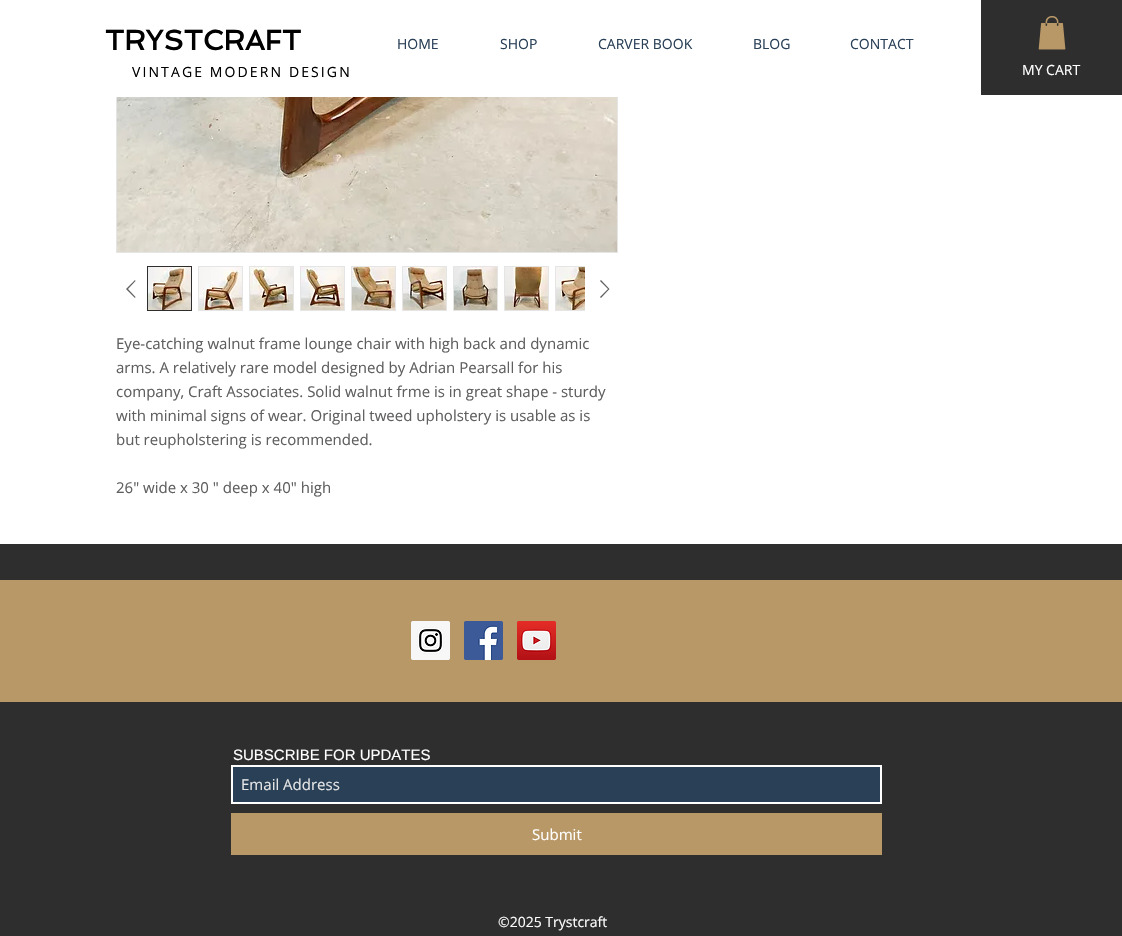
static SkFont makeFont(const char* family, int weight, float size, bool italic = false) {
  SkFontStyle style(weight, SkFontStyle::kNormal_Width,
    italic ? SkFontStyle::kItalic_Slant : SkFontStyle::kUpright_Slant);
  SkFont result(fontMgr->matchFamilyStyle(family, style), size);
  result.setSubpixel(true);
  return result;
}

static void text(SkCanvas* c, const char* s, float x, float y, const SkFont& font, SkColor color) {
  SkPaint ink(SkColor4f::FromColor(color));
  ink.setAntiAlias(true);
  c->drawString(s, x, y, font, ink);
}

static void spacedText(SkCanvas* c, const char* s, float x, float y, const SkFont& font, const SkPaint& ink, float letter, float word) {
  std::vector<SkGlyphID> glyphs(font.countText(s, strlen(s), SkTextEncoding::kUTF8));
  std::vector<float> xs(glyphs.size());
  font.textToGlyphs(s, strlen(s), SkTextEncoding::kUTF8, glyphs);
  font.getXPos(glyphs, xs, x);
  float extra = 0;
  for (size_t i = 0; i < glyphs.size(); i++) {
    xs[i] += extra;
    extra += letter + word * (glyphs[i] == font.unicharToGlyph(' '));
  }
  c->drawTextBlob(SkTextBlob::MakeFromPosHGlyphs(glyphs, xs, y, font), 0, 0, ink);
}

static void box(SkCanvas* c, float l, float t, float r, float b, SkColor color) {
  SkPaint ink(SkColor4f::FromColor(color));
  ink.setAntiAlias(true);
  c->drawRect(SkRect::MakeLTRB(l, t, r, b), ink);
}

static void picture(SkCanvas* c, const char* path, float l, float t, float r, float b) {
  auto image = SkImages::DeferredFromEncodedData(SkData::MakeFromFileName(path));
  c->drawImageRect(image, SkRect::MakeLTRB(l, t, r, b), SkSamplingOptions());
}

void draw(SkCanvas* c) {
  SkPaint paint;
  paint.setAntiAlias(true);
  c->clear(0xffffffff);
  paint.setStyle(SkPaint::kStroke_Style);
  paint.setStrokeWidth(1);
  paint.setColor(0xffe5e5e5);
  c->drawRect(SkRect::MakeLTRB(116.5f, -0.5f, 617.5f, 252.5f), paint);
  box(c, 116, 0, 618, 97, 0xffffffff);
  SkFont face1 = makeFont("Spinnaker", 700, 28);
  paint.setStyle(SkPaint::kFill_Style);
  paint.setColor(0xff000000);
  spacedText(c, "TRYSTCRAFT", 105, 50, face1, paint, 0.25f, 0);
  SkFont face2 = makeFont("Open Sans", 400, 14);
  text(c, "HOME", 397, 49, face2, 0xff294057);
  text(c, "SHOP", 500, 49, face2, 0xff294057);
  text(c, "CARVER BOOK", 598, 49, face2, 0xff294057);
  text(c, "BLOG", 753, 49, face2, 0xff294057);
  text(c, "CONTACT", 850, 49, face2, 0xff294057);
  spacedText(c, "VINTAGE MODERN DESIGN", 132, 77, face2, paint, 2.1f, 0);
  box(c, 981, 0, 1122, 95, 0xff2f2e2e);
  picture(c, "img_01.png", 1038, 16, 1066, 50);
  text(c, "MY CART", 1022, 75, face2, 0xffffffff);
  picture(c, "img_02.png", 117, 97, 617, 252);
  paint.setColor(0xff605e5e);
  c->drawPath(SkPathBuilder(SkPathFillType::kEvenOdd).moveTo(135, 280).lineTo(135.5f, 281).lineTo(128, 289).lineTo(135.5f, 297).lineTo(135, 298).lineTo(126, 289).close().detach(), paint);
  paint.setStyle(SkPaint::kStroke_Style);
  paint.setColor(0xff2f2e2e);
  c->drawRect(SkRect::MakeLTRB(147.5f, 266.5f, 191.5f, 310.5f), paint);
  picture(c, "img_03.png", 148, 267, 191, 310);
  paint.setColor(0xffe5e5e5);
  c->drawRect(SkRect::MakeLTRB(198.5f, 266.5f, 242.5f, 310.5f), paint);
  picture(c, "img_04.png", 199, 267, 242, 310);
  c->drawRect(SkRect::MakeLTRB(249.5f, 266.5f, 293.5f, 310.5f), paint);
  picture(c, "img_05.png", 250, 267, 293, 310);
  c->drawRect(SkRect::MakeLTRB(300.5f, 266.5f, 344.5f, 310.5f), paint);
  picture(c, "img_06.png", 301, 267, 344, 310);
  c->drawRect(SkRect::MakeLTRB(351.5f, 266.5f, 395.5f, 310.5f), paint);
  picture(c, "img_07.png", 352, 267, 395, 310);
  c->drawRect(SkRect::MakeLTRB(402.5f, 266.5f, 446.5f, 310.5f), paint);
  picture(c, "img_08.png", 403, 267, 446, 310);
  c->drawRect(SkRect::MakeLTRB(453.5f, 266.5f, 497.5f, 310.5f), paint);
  picture(c, "img_09.png", 454, 267, 497, 310);
  c->drawRect(SkRect::MakeLTRB(504.5f, 266.5f, 548.5f, 310.5f), paint);
  picture(c, "img_10.png", 505, 267, 548, 310);
  c->save();
  c->clipRect(SkRect::MakeLTRB(143, 262, 585, 315));
  c->drawRect(SkRect::MakeLTRB(555.5f, 266.5f, 599.5f, 310.5f), paint);
  c->restore();
  picture(c, "img_11.png", 556, 267, 585, 310);
  paint.setStyle(SkPaint::kFill_Style);
  paint.setColor(0xff605e5e);
  c->drawPath(SkPathBuilder(SkPathFillType::kEvenOdd).moveTo(601, 280).lineTo(609.5f, 289).lineTo(601, 298).lineTo(600, 297).lineTo(608, 289).lineTo(600, 281).close().detach(), paint);
  SkFont face3 = makeFont("Open Sans", 400, 15);
  text(c, "Eye-catching walnut frame lounge chair with high back and dynamic", 116, 349, face3, 0xff605e5e);
  text(c, "arms. A relatively rare model designed by Adrian Pearsall for his", 116, 373, face3, 0xff605e5e);
  text(c, "company, Craft Associates. Solid walnut frme is in great shape - sturdy", 116, 397, face3, 0xff605e5e);
  text(c, "with minimal signs of wear. Original tweed upholstery is usable as is", 116, 421, face3, 0xff605e5e);
  text(c, "but reupholstering is recommended.", 116, 445, face3, 0xff605e5e);
  text(c, "26\" wide x 30 \" deep x 40\" high", 116, 493, face3, 0xff605e5e);
  box(c, 0, 544, 1122, 936, 0xff2f2e2e);
  box(c, 0, 580, 1122, 702, 0xffb99867);
  picture(c, "img_12.png", 411, 621, 450, 660);
  picture(c, "img_13.png", 464, 621, 503, 660);
  picture(c, "img_14.png", 517, 621, 556, 660);
  SkFont face4 = makeFont("Liberation Sans", 400, 15);
  text(c, "SUBSCRIBE FOR UPDATES", 233, 760, face4, 0xffffffff);
  paint.setColor(0xff294057);
  c->drawRect(SkRect::MakeLTRB(232, 766, 881, 803), paint);
  paint.setStyle(SkPaint::kStroke_Style);
  paint.setStrokeWidth(2);
  paint.setColor(0xffffffff);
  c->drawRect(SkRect::MakeLTRB(232, 766, 881, 803), paint);
  text(c, "Email Address", 241, 790, face3, 0xffe5e5e5);
  box(c, 231, 813, 882, 855, 0xffb99867);
  text(c, "Submit", 532, 840, face3, 0xffffffff);
  text(c, "©2025 Trystcraft", 498, 927, face2, 0xffffffff);
}
